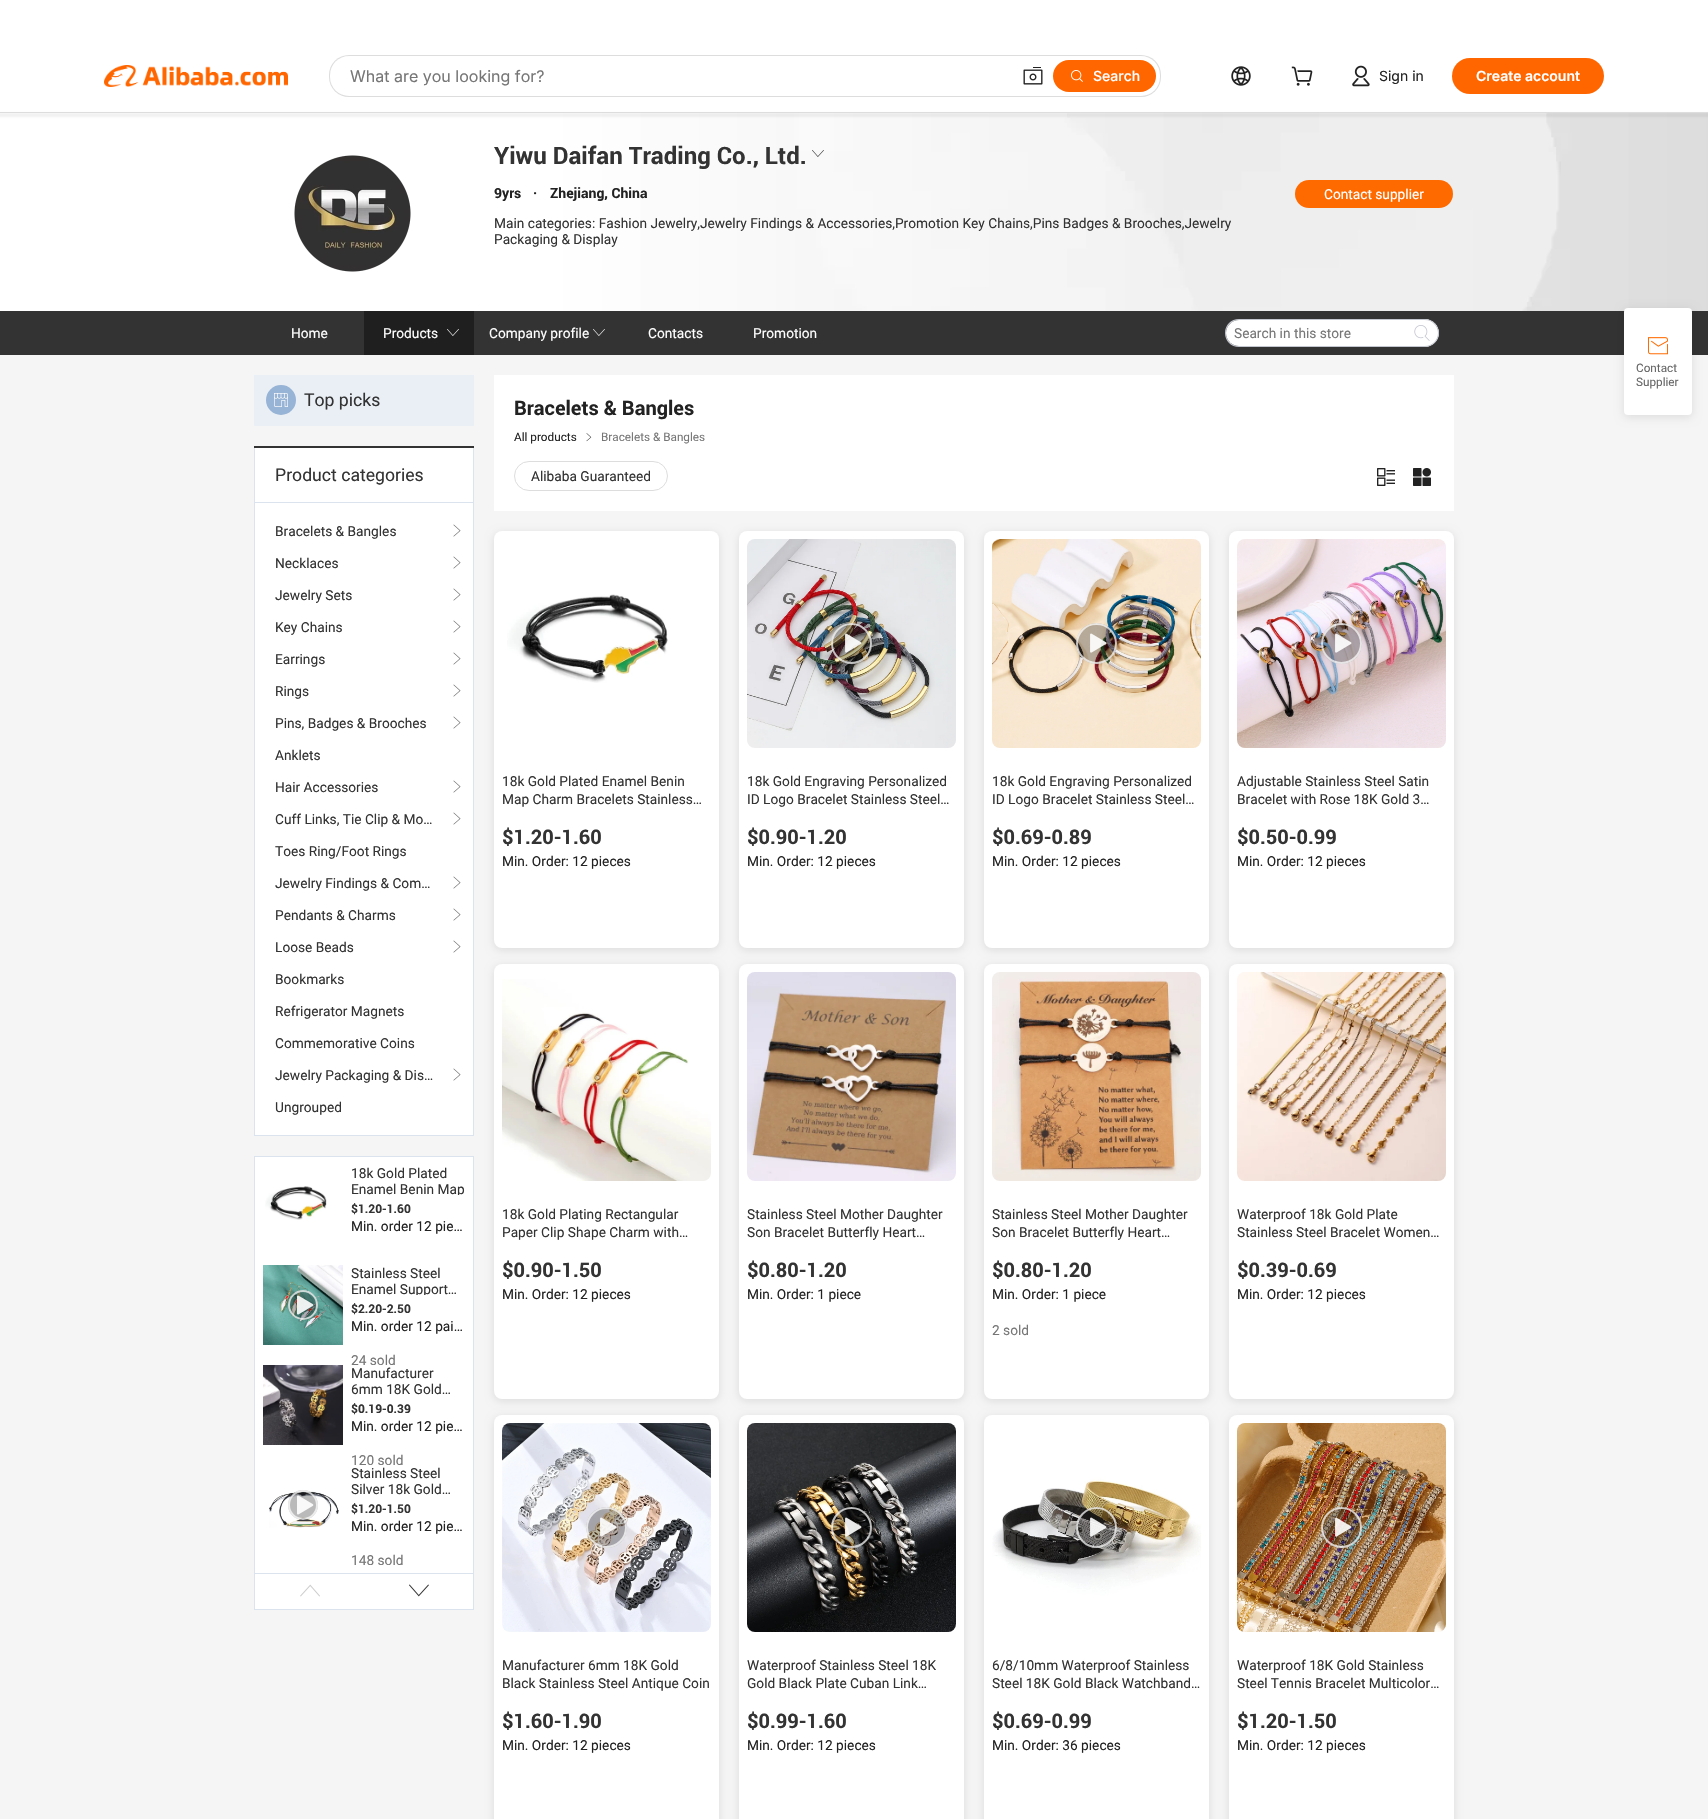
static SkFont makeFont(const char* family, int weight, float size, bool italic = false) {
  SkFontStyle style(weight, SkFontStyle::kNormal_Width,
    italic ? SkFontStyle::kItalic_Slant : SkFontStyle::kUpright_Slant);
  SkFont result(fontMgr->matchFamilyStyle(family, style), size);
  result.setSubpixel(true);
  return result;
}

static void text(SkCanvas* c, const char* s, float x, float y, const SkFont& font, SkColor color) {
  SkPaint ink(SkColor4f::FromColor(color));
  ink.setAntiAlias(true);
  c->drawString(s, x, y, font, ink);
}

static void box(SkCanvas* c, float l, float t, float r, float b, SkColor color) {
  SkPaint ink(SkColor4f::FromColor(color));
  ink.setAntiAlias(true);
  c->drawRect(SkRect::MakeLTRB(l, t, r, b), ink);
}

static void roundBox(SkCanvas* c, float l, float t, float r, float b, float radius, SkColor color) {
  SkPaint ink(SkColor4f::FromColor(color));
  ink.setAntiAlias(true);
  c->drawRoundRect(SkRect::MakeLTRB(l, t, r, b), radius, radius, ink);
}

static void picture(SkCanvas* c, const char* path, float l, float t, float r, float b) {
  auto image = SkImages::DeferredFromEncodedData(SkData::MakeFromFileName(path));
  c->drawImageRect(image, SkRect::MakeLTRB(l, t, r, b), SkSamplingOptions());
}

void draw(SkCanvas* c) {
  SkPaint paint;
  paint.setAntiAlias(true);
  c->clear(0xffffffff);
  picture(c, "img_07.png", 0, 113, 1708, 311);
  paint.setColor(0x0d000000);
  paint.setMaskFilter(SkMaskFilter::MakeBlur(kNormal_SkBlurStyle, 1));
  c->drawRect(SkRect::MakeLTRB(-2, 113, 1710, 117), paint);
  paint.setMaskFilter(nullptr);
  box(c, 0, 112, 1708, 113, 0xffdddddd);
  picture(c, "img_01.png", 104, 65, 288, 87);
  roundBox(c, 329, 55, 1161, 97, 20, 0xffdddddd);
  roundBox(c, 330, 56, 1160, 96, 19, 0xffffffff);
  SkFont face1 = makeFont("Inter", 400, 16);
  text(c, "What are you looking for?", 350, 82, face1, 0xff767676);
  picture(c, "img_02.png", 1023, 67, 1043, 85);
  roundBox(c, 1053, 60, 1156, 92, 16, 0xffff6600);
  picture(c, "img_03.png", 1071, 70, 1083, 82);
  SkFont face2 = makeFont("Inter", 500, 14);
  text(c, "Search", 1093, 81, face2, 0xffffffff);
  picture(c, "img_04.png", 1231, 66, 1251, 86);
  picture(c, "img_05.png", 1291, 66, 1313, 86);
  picture(c, "img_06.png", 1352, 65, 1370, 87);
  SkFont face3 = makeFont("Inter", 400, 14);
  text(c, "Sign in", 1379, 81, face3, 0xff222222);
  roundBox(c, 1452, 58, 1604, 94, 18, 0xffff6600);
  SkFont face4 = makeFont("Inter", 600, 14);
  text(c, "Create account", 1476, 81, face4, 0xffffffff);
  picture(c, "img_08.png", 294, 155, 411, 272);
  SkFont face5 = makeFont("Roboto", 700, 24);
  text(c, "Yiwu Daifan Trading Co., Ltd.", 494, 164, face5, 0xff333333);
  picture(c, "img_09.png", 812, 150, 824, 157);
  SkFont face6 = makeFont("Roboto", 700, 14);
  text(c, "9yrs", 494, 198, face6, 0xff222222);
  text(c, "·", 533, 198, face6, 0xff222222);
  text(c, "Zhejiang, China", 550, 198, face6, 0xff222222);
  SkFont face7 = makeFont("Roboto", 400, 14);
  text(c, "Main categories: Fashion Jewelry,Jewelry Findings & Accessories,Promotion Key Chains,Pins Badges & Brooches,Jewelry", 494, 228, face7, 0xff333333);
  text(c, "Packaging & Display", 494, 244, face7, 0xff333333);
  roundBox(c, 1295, 180, 1453, 208, 14, 0xffff6a00);
  text(c, "Contact supplier", 1324, 199, face7, 0xffffffff);
  box(c, 0, 311, 1708, 355, 0xff333333);
  text(c, "Home", 291, 338, face7, 0xffffffff);
  box(c, 364, 311, 474, 355, 0xff1f1f1f);
  text(c, "Products", 383, 338, face7, 0xffffffff);
  picture(c, "img_10.png", 447, 329, 459, 336);
  text(c, "Company profile", 489, 338, face7, 0xffffffff);
  picture(c, "img_11.png", 593, 329, 605, 336);
  text(c, "Contacts", 648, 338, face7, 0xffffffff);
  text(c, "Promotion", 753, 338, face7, 0xffffffff);
  paint.setColor(0xffc4c6cf);
  c->drawPath(SkPathBuilder(SkPathFillType::kEvenOdd).moveTo(1239, 319).lineTo(1406, 319).lineTo(1406, 347).lineTo(1239, 347).cubicTo(1231, 347, 1225, 341, 1225, 333).cubicTo(1225, 325, 1231, 319, 1239, 319).close().moveTo(1239, 320).lineTo(1406, 320).lineTo(1406, 346).lineTo(1239, 346).cubicTo(1232, 346, 1226, 340, 1226, 333).cubicTo(1226, 326, 1232, 320, 1239, 320).close().detach(), paint);
  paint.setColor(0xffffffff);
  c->drawPath(SkPathBuilder().moveTo(1239, 320).lineTo(1405.5f, 320).cubicTo(1406, 320, 1406, 320, 1406, 320.5f).lineTo(1406, 345.5f).cubicTo(1406, 346, 1406, 346, 1405.5f, 346).lineTo(1239, 346).cubicTo(1232, 346, 1226, 340, 1226, 333).cubicTo(1226, 326, 1232, 320, 1239, 320).close().detach(), paint);
  text(c, "Search in this store", 1234, 338, face7, 0xff767676);
  c->drawPath(SkPathBuilder().moveTo(1406, 319).lineTo(1425, 319).cubicTo(1432.5f, 319, 1439, 325.5f, 1439, 333).cubicTo(1439, 340.5f, 1432.5f, 347, 1425, 347).lineTo(1406, 347).close().detach(), paint);
  paint.setColor(0xffc4c6cf);
  c->drawPath(SkPathBuilder(SkPathFillType::kEvenOdd).moveTo(1406, 319).lineTo(1425, 319).cubicTo(1432.5f, 319, 1439, 325.5f, 1439, 333).cubicTo(1439, 340.5f, 1432.5f, 347, 1425, 347).lineTo(1406, 347).close().moveTo(1406, 320).lineTo(1425, 320).cubicTo(1432, 320, 1438, 326, 1438, 333).cubicTo(1438, 340, 1432, 346, 1425, 346).lineTo(1406, 346).close().detach(), paint);
  picture(c, "img_12.png", 1414, 325, 1430, 341);
  box(c, 0, 355, 1708, 1819, 0xfff5f5f5);
  box(c, 254, 375, 474, 426, 0xffe9eff5);
  paint.setColor(0xff97b3d5);
  c->drawCircle(281, 400, 15, paint);
  picture(c, "img_13.png", 274, 393, 288, 407);
  SkFont face8 = makeFont("Roboto", 400, 18);
  text(c, "Top picks", 304, 406, face8, 0xff333333);
  box(c, 255, 448, 473, 1135, 0xffffffff);
  box(c, 254, 446, 474, 448, 0xff333333);
  box(c, 473, 448, 474, 1136, 0xffdbe3ef);
  box(c, 254, 1135, 474, 1136, 0xffdbe3ef);
  box(c, 254, 448, 255, 1136, 0xffdbe3ef);
  box(c, 255, 502, 473, 503, 0xffdbe3ef);
  text(c, "Product categories", 275, 481, face8, 0xff333333);
  text(c, "Bracelets & Bangles", 275, 536, face7, 0xff333333);
  picture(c, "img_14.png", 453, 524, 461, 537);
  text(c, "Necklaces", 275, 568, face7, 0xff333333);
  picture(c, "img_14.png", 453, 556, 461, 569);
  text(c, "Jewelry Sets", 275, 600, face7, 0xff333333);
  picture(c, "img_14.png", 453, 588, 461, 601);
  text(c, "Key Chains", 275, 632, face7, 0xff333333);
  picture(c, "img_14.png", 453, 620, 461, 633);
  text(c, "Earrings", 275, 664, face7, 0xff333333);
  picture(c, "img_14.png", 453, 652, 461, 665);
  text(c, "Rings", 275, 696, face7, 0xff333333);
  picture(c, "img_14.png", 453, 684, 461, 697);
  text(c, "Pins, Badges & Brooches", 275, 728, face7, 0xff333333);
  picture(c, "img_14.png", 453, 716, 461, 729);
  text(c, "Anklets", 275, 760, face7, 0xff333333);
  text(c, "Hair Accessories", 275, 792, face7, 0xff333333);
  picture(c, "img_14.png", 453, 780, 461, 793);
  text(c, "Cuff Links, Tie Clip & Mo…", 275, 824, face7, 0xff333333);
  picture(c, "img_14.png", 453, 812, 461, 825);
  text(c, "Toes Ring/Foot Rings", 275, 856, face7, 0xff333333);
  text(c, "Jewelry Findings & Com…", 275, 888, face7, 0xff333333);
  picture(c, "img_14.png", 453, 876, 461, 889);
  text(c, "Pendants & Charms", 275, 920, face7, 0xff333333);
  picture(c, "img_14.png", 453, 908, 461, 921);
  text(c, "Loose Beads", 275, 952, face7, 0xff333333);
  picture(c, "img_14.png", 453, 940, 461, 953);
  text(c, "Bookmarks", 275, 984, face7, 0xff333333);
  text(c, "Refrigerator Magnets", 275, 1016, face7, 0xff333333);
  text(c, "Commemorative Coins", 275, 1048, face7, 0xff333333);
  text(c, "Jewelry Packaging & Dis…", 275, 1080, face7, 0xff333333);
  picture(c, "img_14.png", 453, 1068, 461, 1081);
  text(c, "Ungrouped", 275, 1112, face7, 0xff333333);
  paint.setColor(0xffffffff);
  c->drawRect(SkRect::MakeLTRB(254.5f, 1156.5f, 473.5f, 1609.5f), paint);
  paint.setStyle(SkPaint::kStroke_Style);
  paint.setStrokeWidth(1);
  paint.setColor(0xffdbe3ef);
  c->drawRect(SkRect::MakeLTRB(254.5f, 1156.5f, 473.5f, 1609.5f), paint);
  picture(c, "img_15.png", 265, 1186, 327, 1220);
  text(c, "18k Gold Plated", 351, 1178, face7, 0xff333333);
  c->save();
  c->clipRect(SkRect::MakeLTRB(351, 1165, 465, 1195));
  text(c, "Enamel Benin Map", 351, 1194, face7, 0xff333333);
  c->restore();
  SkFont face9 = makeFont("Roboto", 700, 12);
  text(c, "$1.20-1.60", 351, 1213, face9, 0xff333333);
  text(c, "Min. order 12 pie…", 351, 1231, face7, 0xff222222);
  picture(c, "img_16.png", 263, 1265, 343, 1345);
  paint.setStyle(SkPaint::kFill_Style);
  paint.setColor(0x45000000);
  c->drawCircle(303, 1305, 15, paint);
  paint.setStyle(SkPaint::kStroke_Style);
  paint.setStrokeWidth(2);
  paint.setColor(0xb8ffffff);
  c->drawCircle(303, 1305, 14, paint);
  picture(c, "img_17.png", 296, 1295, 314, 1315);
  text(c, "Stainless Steel", 351, 1278, face7, 0xff333333);
  c->save();
  c->clipRect(SkRect::MakeLTRB(351, 1265, 465, 1295));
  text(c, "Enamel Support…", 351, 1294, face7, 0xff333333);
  c->restore();
  text(c, "$2.20-2.50", 351, 1313, face9, 0xff333333);
  text(c, "Min. order 12 pai…", 351, 1331, face7, 0xff222222);
  c->save();
  c->clipRect(SkRect::MakeLTRB(351, 1265, 465, 1365));
  text(c, "24 sold", 351, 1365, face7, 0xff767676);
  c->restore();
  picture(c, "img_18.png", 263, 1365, 343, 1445);
  text(c, "Manufacturer", 351, 1378, face7, 0xff333333);
  text(c, "6mm 18K Gold…", 351, 1394, face7, 0xff333333);
  text(c, "$0.19-0.39", 351, 1413, face9, 0xff333333);
  text(c, "Min. order 12 pie…", 351, 1431, face7, 0xff222222);
  c->save();
  c->clipRect(SkRect::MakeLTRB(351, 1365, 465, 1465));
  text(c, "120 sold", 351, 1465, face7, 0xff767676);
  c->restore();
  picture(c, "img_20.png", 269, 1491, 339, 1528);
  paint.setStyle(SkPaint::kFill_Style);
  paint.setColor(0x45000000);
  c->drawCircle(303, 1505, 15, paint);
  paint.setStyle(SkPaint::kStroke_Style);
  paint.setColor(0xb8ffffff);
  c->drawCircle(303, 1505, 14, paint);
  picture(c, "img_19.png", 297, 1495, 314, 1515);
  text(c, "Stainless Steel", 351, 1478, face7, 0xff333333);
  text(c, "Silver 18k Gold…", 351, 1494, face7, 0xff333333);
  text(c, "$1.20-1.50", 351, 1513, face9, 0xff333333);
  text(c, "Min. order 12 pie…", 351, 1531, face7, 0xff222222);
  c->save();
  c->clipRect(SkRect::MakeLTRB(351, 1465, 465, 1565));
  text(c, "148 sold", 351, 1565, face7, 0xff767676);
  c->restore();
  box(c, 255, 1573, 473, 1574, 0xffdbe3ef);
  picture(c, "img_21.png", 300, 1584, 320, 1597);
  picture(c, "img_22.png", 409, 1584, 429, 1597);
  box(c, 494, 375, 1454, 511, 0xffffffff);
  SkFont face10 = makeFont("Roboto", 700, 20);
  text(c, "Bracelets & Bangles", 514, 415, face10, 0xff222222);
  SkFont face11 = makeFont("Roboto", 400, 12);
  text(c, "All products", 514, 441, face11, 0xff222222);
  picture(c, "img_23.png", 586, 433, 592, 442);
  text(c, "Bracelets & Bangles", 601, 441, face11, 0xff767676);
  paint.setStrokeWidth(1);
  paint.setColor(0xffdddddd);
  c->drawRoundRect(SkRect::MakeLTRB(514.5f, 461.5f, 667.5f, 490.5f), 14.5f, 14.5f, paint);
  text(c, "Alibaba Guaranteed", 531, 481, face7, 0xff333333);
  picture(c, "img_24.png", 1377, 468, 1395, 486);
  picture(c, "img_25.png", 1413, 468, 1431, 486);
  paint.setStyle(SkPaint::kFill_Style);
  paint.setColor(0x1a000000);
  paint.setMaskFilter(SkMaskFilter::MakeBlur(kNormal_SkBlurStyle, 4));
  c->drawRoundRect(SkRect::MakeLTRB(494, 533, 719, 950), 8, 8, paint);
  paint.setMaskFilter(nullptr);
  roundBox(c, 494, 531, 719, 948, 8, 0xffffffff);
  picture(c, "img_26.png", 507, 594, 668, 683);
  text(c, "18k Gold Plated Enamel Benin", 502, 786, face7, 0xff333333);
  text(c, "Map Charm Bracelets Stainless…", 502, 804, face7, 0xff333333);
  text(c, "$1.20-1.60", 502, 844, face10, 0xff333333);
  text(c, "Min. Order: 12 pieces", 502, 866, face7, 0xff222222);
  paint.setMaskFilter(SkMaskFilter::MakeBlur(kNormal_SkBlurStyle, 4));
  c->drawRoundRect(SkRect::MakeLTRB(739, 533, 964, 950), 8, 8, paint);
  paint.setMaskFilter(nullptr);
  roundBox(c, 739, 531, 964, 948, 8, 0xffffffff);
  picture(c, "img_27.png", 747, 539, 956, 748);
  paint.setColor(0x45000000);
  c->drawCircle(851.5f, 643.5f, 20.5f, paint);
  paint.setStyle(SkPaint::kStroke_Style);
  paint.setStrokeWidth(2);
  paint.setColor(0xb8ffffff);
  c->drawCircle(851.5f, 643.5f, 19.5f, paint);
  picture(c, "img_28.png", 845, 633, 862, 653);
  text(c, "18k Gold Engraving Personalized", 747, 786, face7, 0xff333333);
  text(c, "ID Logo Bracelet Stainless Steel…", 747, 804, face7, 0xff333333);
  text(c, "$0.90-1.20", 747, 844, face10, 0xff333333);
  text(c, "Min. Order: 12 pieces", 747, 866, face7, 0xff222222);
  paint.setStyle(SkPaint::kFill_Style);
  paint.setColor(0x1a000000);
  paint.setMaskFilter(SkMaskFilter::MakeBlur(kNormal_SkBlurStyle, 4));
  c->drawRoundRect(SkRect::MakeLTRB(984, 533, 1209, 950), 8, 8, paint);
  paint.setMaskFilter(nullptr);
  roundBox(c, 984, 531, 1209, 948, 8, 0xffffffff);
  picture(c, "img_29.png", 992, 539, 1201, 748);
  paint.setColor(0x45000000);
  c->drawCircle(1096.5f, 643.5f, 20.5f, paint);
  paint.setStyle(SkPaint::kStroke_Style);
  paint.setColor(0xb8ffffff);
  c->drawCircle(1096.5f, 643.5f, 19.5f, paint);
  picture(c, "img_30.png", 1090, 633, 1107, 653);
  text(c, "18k Gold Engraving Personalized", 992, 786, face7, 0xff333333);
  text(c, "ID Logo Bracelet Stainless Steel…", 992, 804, face7, 0xff333333);
  text(c, "$0.69-0.89", 992, 844, face10, 0xff333333);
  text(c, "Min. Order: 12 pieces", 992, 866, face7, 0xff222222);
  paint.setStyle(SkPaint::kFill_Style);
  paint.setColor(0x1a000000);
  paint.setMaskFilter(SkMaskFilter::MakeBlur(kNormal_SkBlurStyle, 4));
  c->drawRoundRect(SkRect::MakeLTRB(1229, 533, 1454, 950), 8, 8, paint);
  paint.setMaskFilter(nullptr);
  roundBox(c, 1229, 531, 1454, 948, 8, 0xffffffff);
  picture(c, "img_31.png", 1237, 539, 1446, 748);
  paint.setColor(0x45000000);
  c->drawCircle(1341.5f, 643.5f, 20.5f, paint);
  paint.setStyle(SkPaint::kStroke_Style);
  paint.setColor(0xb8ffffff);
  c->drawCircle(1341.5f, 643.5f, 19.5f, paint);
  picture(c, "img_32.png", 1335, 633, 1352, 653);
  text(c, "Adjustable Stainless Steel Satin", 1237, 786, face7, 0xff333333);
  text(c, "Bracelet with Rose 18K Gold 3…", 1237, 804, face7, 0xff333333);
  text(c, "$0.50-0.99", 1237, 844, face10, 0xff333333);
  text(c, "Min. Order: 12 pieces", 1237, 866, face7, 0xff222222);
  paint.setStyle(SkPaint::kFill_Style);
  paint.setColor(0x1a000000);
  paint.setMaskFilter(SkMaskFilter::MakeBlur(kNormal_SkBlurStyle, 4));
  c->drawRoundRect(SkRect::MakeLTRB(494, 966, 719, 1401), 8, 8, paint);
  paint.setMaskFilter(nullptr);
  roundBox(c, 494, 964, 719, 1399, 8, 0xffffffff);
  picture(c, "img_33.png", 502, 979, 711, 1181);
  text(c, "18k Gold Plating Rectangular", 502, 1219, face7, 0xff333333);
  text(c, "Paper Clip Shape Charm with…", 502, 1237, face7, 0xff333333);
  text(c, "$0.90-1.50", 502, 1277, face10, 0xff333333);
  text(c, "Min. Order: 12 pieces", 502, 1299, face7, 0xff222222);
  paint.setMaskFilter(SkMaskFilter::MakeBlur(kNormal_SkBlurStyle, 4));
  c->drawRoundRect(SkRect::MakeLTRB(739, 966, 964, 1401), 8, 8, paint);
  paint.setMaskFilter(nullptr);
  roundBox(c, 739, 964, 964, 1399, 8, 0xffffffff);
  picture(c, "img_34.png", 747, 972, 956, 1181);
  text(c, "Stainless Steel Mother Daughter", 747, 1219, face7, 0xff333333);
  text(c, "Son Bracelet Butterfly Heart…", 747, 1237, face7, 0xff333333);
  text(c, "$0.80-1.20", 747, 1277, face10, 0xff333333);
  text(c, "Min. Order: 1 piece", 747, 1299, face7, 0xff222222);
  paint.setMaskFilter(SkMaskFilter::MakeBlur(kNormal_SkBlurStyle, 4));
  c->drawRoundRect(SkRect::MakeLTRB(984, 966, 1209, 1401), 8, 8, paint);
  paint.setMaskFilter(nullptr);
  roundBox(c, 984, 964, 1209, 1399, 8, 0xffffffff);
  picture(c, "img_35.png", 992, 972, 1201, 1181);
  text(c, "Stainless Steel Mother Daughter", 992, 1219, face7, 0xff333333);
  text(c, "Son Bracelet Butterfly Heart…", 992, 1237, face7, 0xff333333);
  text(c, "$0.80-1.20", 992, 1277, face10, 0xff333333);
  text(c, "Min. Order: 1 piece", 992, 1299, face7, 0xff222222);
  text(c, "2 sold", 992, 1335, face7, 0xff767676);
  paint.setMaskFilter(SkMaskFilter::MakeBlur(kNormal_SkBlurStyle, 4));
  c->drawRoundRect(SkRect::MakeLTRB(1229, 966, 1454, 1401), 8, 8, paint);
  paint.setMaskFilter(nullptr);
  roundBox(c, 1229, 964, 1454, 1399, 8, 0xffffffff);
  picture(c, "img_36.png", 1237, 972, 1446, 1181);
  text(c, "Waterproof 18k Gold Plate", 1237, 1219, face7, 0xff333333);
  text(c, "Stainless Steel Bracelet Women…", 1237, 1237, face7, 0xff333333);
  text(c, "$0.39-0.69", 1237, 1277, face10, 0xff333333);
  text(c, "Min. Order: 12 pieces", 1237, 1299, face7, 0xff222222);
  paint.setMaskFilter(SkMaskFilter::MakeBlur(kNormal_SkBlurStyle, 4));
  c->drawRoundRect(SkRect::MakeLTRB(494, 1417, 719, 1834), 8, 8, paint);
  paint.setMaskFilter(nullptr);
  roundBox(c, 494, 1415, 719, 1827, 8, 0xffffffff);
  picture(c, "img_37.png", 502, 1423, 711, 1632);
  paint.setColor(0x45000000);
  c->drawCircle(606.5f, 1527.5f, 20.5f, paint);
  paint.setStyle(SkPaint::kStroke_Style);
  paint.setColor(0xb8ffffff);
  c->drawCircle(606.5f, 1527.5f, 19.5f, paint);
  picture(c, "img_38.png", 600, 1517, 617, 1537);
  text(c, "Manufacturer 6mm 18K Gold", 502, 1670, face7, 0xff333333);
  text(c, "Black Stainless Steel Antique Coin", 502, 1688, face7, 0xff333333);
  text(c, "$1.60-1.90", 502, 1728, face10, 0xff333333);
  text(c, "Min. Order: 12 pieces", 502, 1750, face7, 0xff222222);
  paint.setStyle(SkPaint::kFill_Style);
  paint.setColor(0x1a000000);
  paint.setMaskFilter(SkMaskFilter::MakeBlur(kNormal_SkBlurStyle, 4));
  c->drawRoundRect(SkRect::MakeLTRB(739, 1417, 964, 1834), 8, 8, paint);
  paint.setMaskFilter(nullptr);
  roundBox(c, 739, 1415, 964, 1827, 8, 0xffffffff);
  picture(c, "img_39.png", 747, 1423, 956, 1632);
  paint.setColor(0x45000000);
  c->drawCircle(851.5f, 1527.5f, 20.5f, paint);
  paint.setStyle(SkPaint::kStroke_Style);
  paint.setColor(0xb8ffffff);
  c->drawCircle(851.5f, 1527.5f, 19.5f, paint);
  picture(c, "img_40.png", 845, 1517, 862, 1537);
  text(c, "Waterproof Stainless Steel 18K", 747, 1670, face7, 0xff333333);
  text(c, "Gold Black Plate Cuban Link…", 747, 1688, face7, 0xff333333);
  text(c, "$0.99-1.60", 747, 1728, face10, 0xff333333);
  text(c, "Min. Order: 12 pieces", 747, 1750, face7, 0xff222222);
  paint.setStyle(SkPaint::kFill_Style);
  paint.setColor(0x1a000000);
  paint.setMaskFilter(SkMaskFilter::MakeBlur(kNormal_SkBlurStyle, 4));
  c->drawRoundRect(SkRect::MakeLTRB(984, 1417, 1209, 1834), 8, 8, paint);
  paint.setMaskFilter(nullptr);
  roundBox(c, 984, 1415, 1209, 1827, 8, 0xffffffff);
  picture(c, "img_41.png", 992, 1423, 1201, 1632);
  paint.setColor(0x45000000);
  c->drawCircle(1096.5f, 1527.5f, 20.5f, paint);
  paint.setStyle(SkPaint::kStroke_Style);
  paint.setColor(0xb8ffffff);
  c->drawCircle(1096.5f, 1527.5f, 19.5f, paint);
  picture(c, "img_42.png", 1090, 1517, 1107, 1537);
  text(c, "6/8/10mm Waterproof Stainless", 992, 1670, face7, 0xff333333);
  text(c, "Steel 18K Gold Black Watchband…", 992, 1688, face7, 0xff333333);
  text(c, "$0.69-0.99", 992, 1728, face10, 0xff333333);
  text(c, "Min. Order: 36 pieces", 992, 1750, face7, 0xff222222);
  paint.setStyle(SkPaint::kFill_Style);
  paint.setColor(0x1a000000);
  paint.setMaskFilter(SkMaskFilter::MakeBlur(kNormal_SkBlurStyle, 4));
  c->drawRoundRect(SkRect::MakeLTRB(1229, 1417, 1454, 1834), 8, 8, paint);
  paint.setMaskFilter(nullptr);
  roundBox(c, 1229, 1415, 1454, 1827, 8, 0xffffffff);
  picture(c, "img_43.png", 1237, 1423, 1446, 1632);
  paint.setColor(0x45000000);
  c->drawCircle(1341.5f, 1527.5f, 20.5f, paint);
  paint.setStyle(SkPaint::kStroke_Style);
  paint.setColor(0xb8ffffff);
  c->drawCircle(1341.5f, 1527.5f, 19.5f, paint);
  picture(c, "img_44.png", 1335, 1517, 1352, 1537);
  text(c, "Waterproof 18K Gold Stainless", 1237, 1670, face7, 0xff333333);
  text(c, "Steel Tennis Bracelet Multicolor…", 1237, 1688, face7, 0xff333333);
  text(c, "$1.20-1.50", 1237, 1728, face10, 0xff333333);
  text(c, "Min. Order: 12 pieces", 1237, 1750, face7, 0xff222222);
  paint.setStyle(SkPaint::kFill_Style);
  paint.setColor(0x1a000000);
  paint.setMaskFilter(SkMaskFilter::MakeBlur(kNormal_SkBlurStyle, 5));
  c->drawRoundRect(SkRect::MakeLTRB(1624, 310, 1692, 417), 4, 4, paint);
  paint.setMaskFilter(nullptr);
  roundBox(c, 1624, 308, 1692, 415, 4, 0xffffffff);
  picture(c, "img_45.png", 1648, 337, 1668, 355);
  text(c, "Contact", 1636, 372, face11, 0xff666666);
  text(c, "Supplier", 1636, 386, face11, 0xff666666);
}
